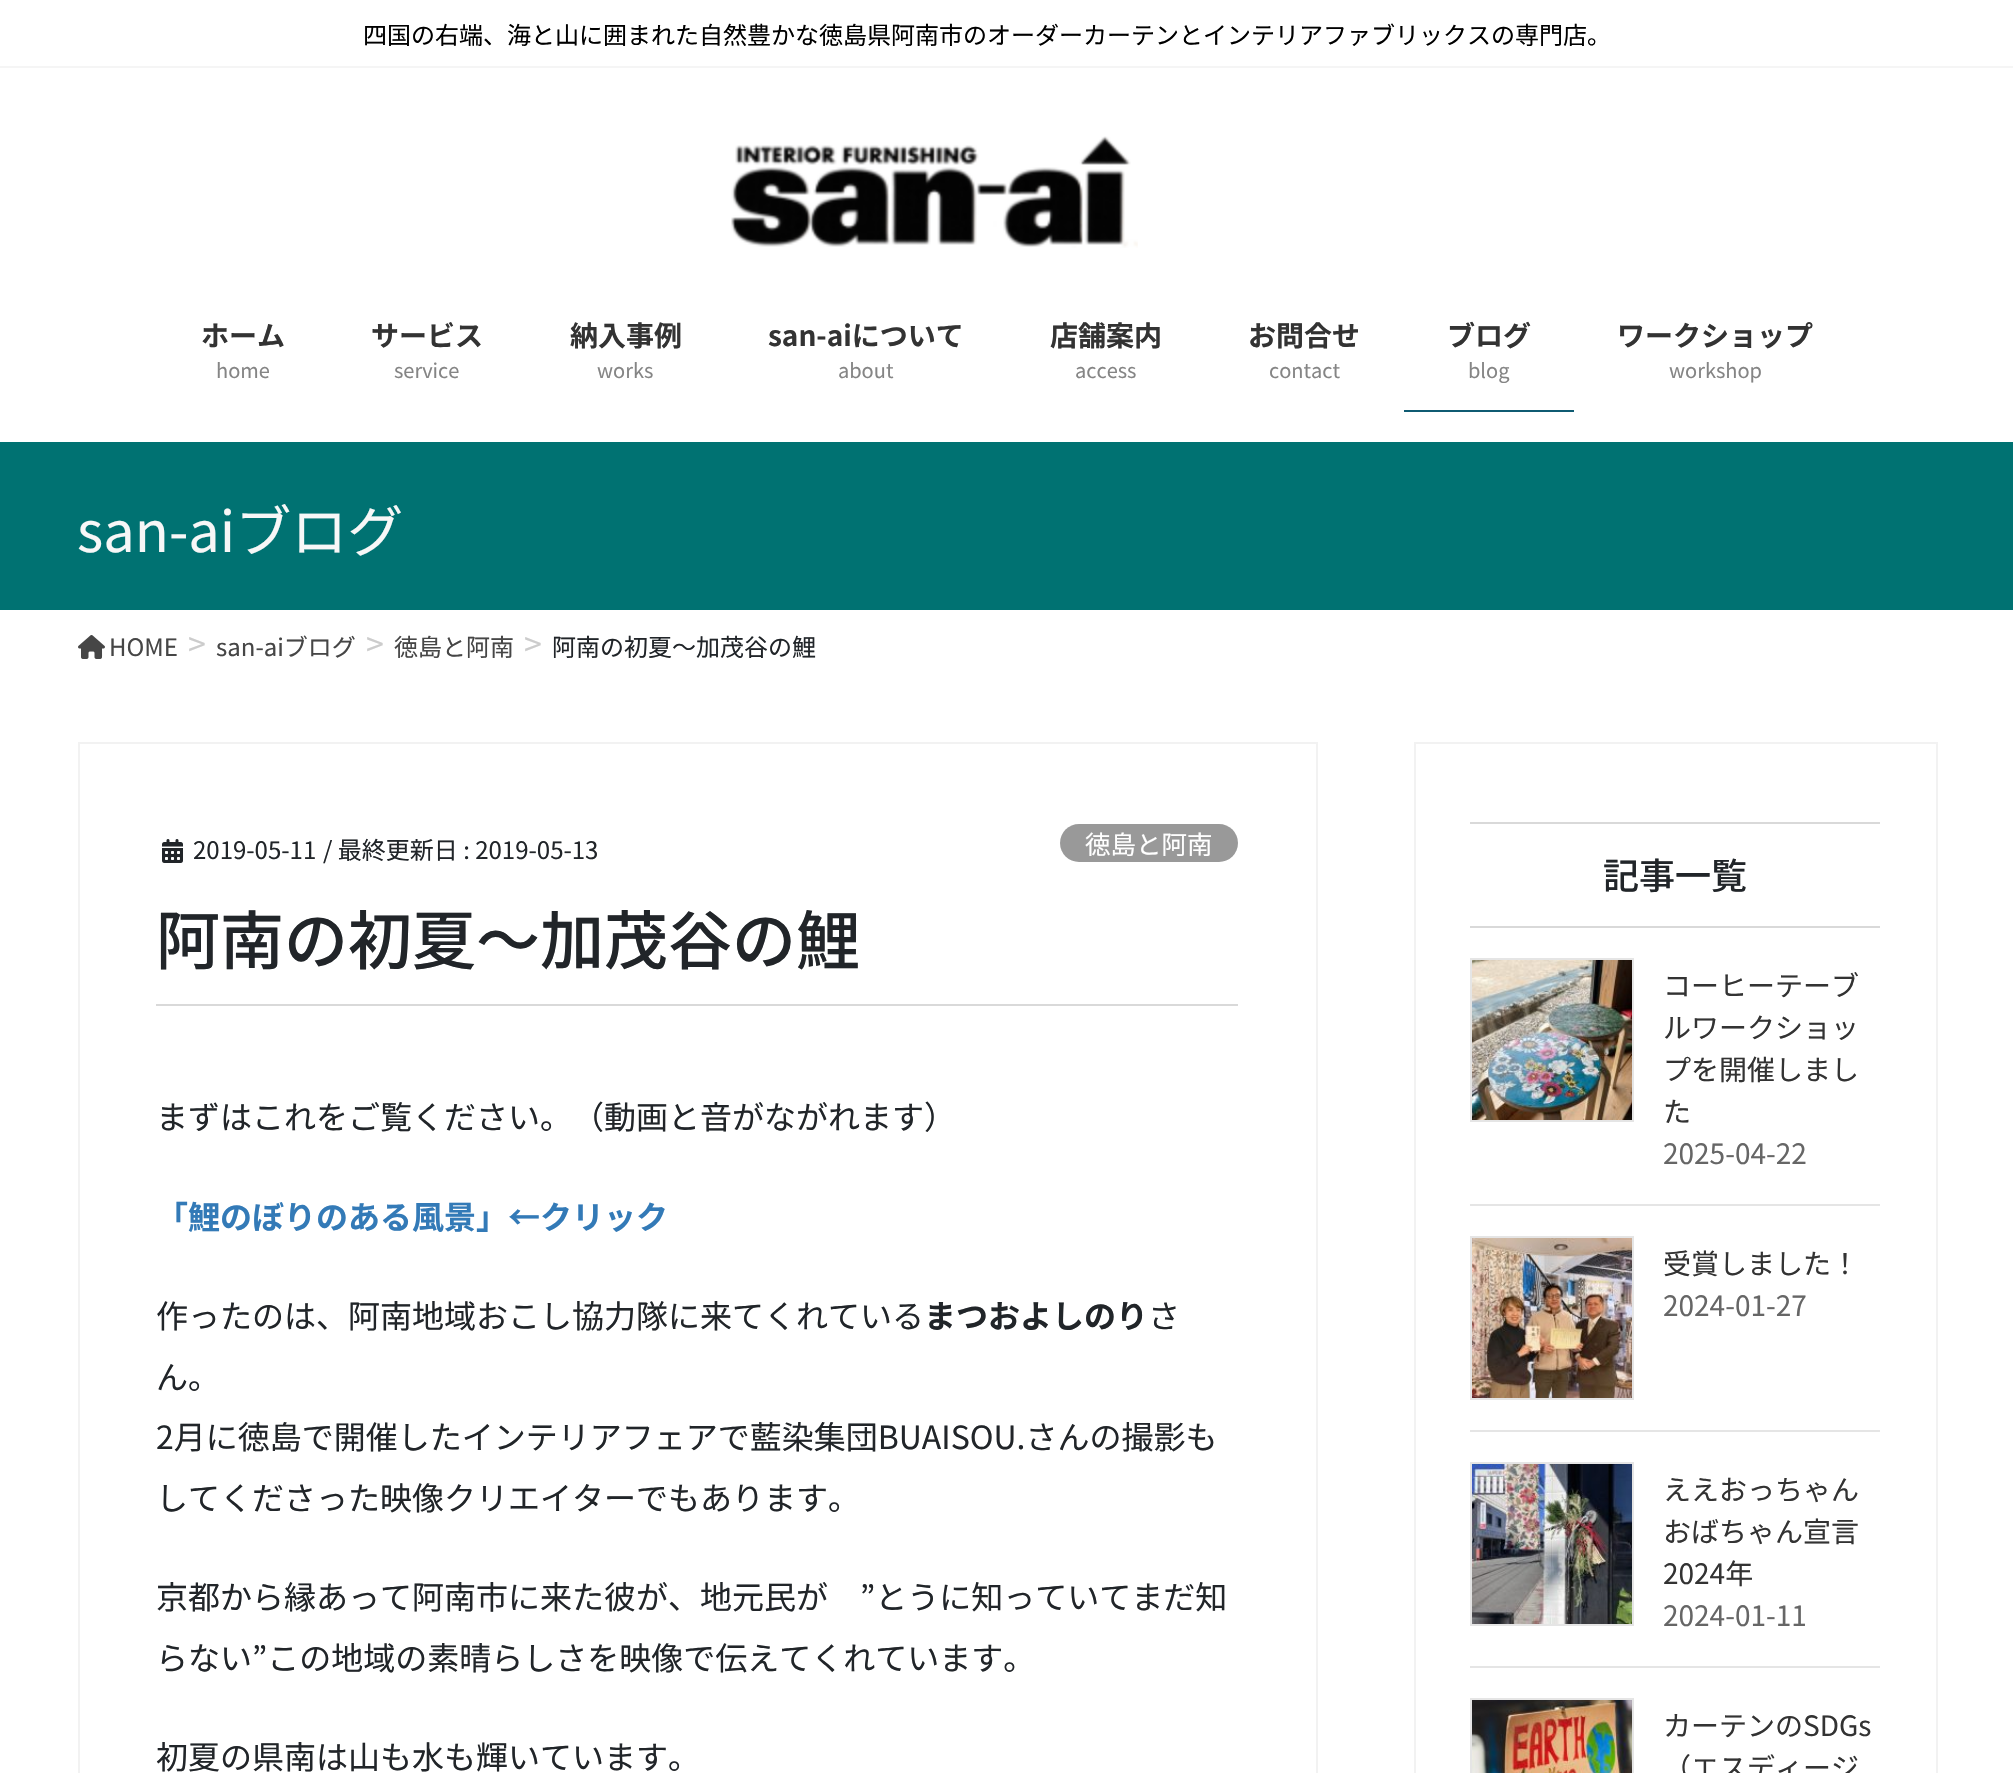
static SkFont makeFont(const char* family, int weight, float size, bool italic = false) {
  SkFontStyle style(weight, SkFontStyle::kNormal_Width,
    italic ? SkFontStyle::kItalic_Slant : SkFontStyle::kUpright_Slant);
  SkFont result(fontMgr->matchFamilyStyle(family, style), size);
  result.setSubpixel(true);
  return result;
}

static void text(SkCanvas* c, const char* s, float x, float y, const SkFont& font, SkColor color) {
  SkPaint ink(SkColor4f::FromColor(color));
  ink.setAntiAlias(true);
  c->drawString(s, x, y, font, ink);
}

static void box(SkCanvas* c, float l, float t, float r, float b, SkColor color) {
  SkPaint ink(SkColor4f::FromColor(color));
  ink.setAntiAlias(true);
  c->drawRect(SkRect::MakeLTRB(l, t, r, b), ink);
}

static void roundBox(SkCanvas* c, float l, float t, float r, float b, float radius, SkColor color) {
  SkPaint ink(SkColor4f::FromColor(color));
  ink.setAntiAlias(true);
  c->drawRoundRect(SkRect::MakeLTRB(l, t, r, b), radius, radius, ink);
}

static void picture(SkCanvas* c, const char* path, float l, float t, float r, float b) {
  auto image = SkImages::DeferredFromEncodedData(SkData::MakeFromFileName(path));
  c->drawImageRect(image, SkRect::MakeLTRB(l, t, r, b), SkSamplingOptions());
}

void draw(SkCanvas* c) {
  SkPaint paint;
  paint.setAntiAlias(true);
  c->clear(0xffffffff);
  box(c, 0, 66, 2013, 68, 0xfff5f5f5);
  SkFont face1 = makeFont("Noto Sans JP", 400, 24);
  text(c, "四国の右端、海と山に囲まれた自然豊かな徳島県阿南市のオーダーカーテンとインテリアファブリックスの専門店。", 363, 44, face1, 0xff000000);
  picture(c, "img_01.png", 731, 136, 1138, 248);
  SkFont face2 = makeFont("Noto Sans JP", 700, 28);
  text(c, "ホーム", 201, 346, face2, 0xff333333);
  SkFont face3 = makeFont("Noto Sans JP", 400, 20);
  text(c, "home", 216, 378, face3, 0xff858585);
  text(c, "サービス", 371, 346, face2, 0xff333333);
  text(c, "service", 394, 378, face3, 0xff858585);
  text(c, "納入事例", 570, 346, face2, 0xff333333);
  text(c, "works", 597, 378, face3, 0xff858585);
  text(c, "san-aiについて", 768, 346, face2, 0xff333333);
  text(c, "about", 838, 378, face3, 0xff858585);
  text(c, "店舗案内", 1050, 346, face2, 0xff333333);
  text(c, "access", 1075, 378, face3, 0xff858585);
  text(c, "お問合せ", 1248, 346, face2, 0xff333333);
  text(c, "contact", 1269, 378, face3, 0xff858585);
  text(c, "ブログ", 1447, 346, face2, 0xff333333);
  text(c, "blog", 1468, 378, face3, 0xff858585);
  box(c, 1404, 410, 1574, 412, 0xff0f5b72);
  text(c, "ワークショップ", 1617, 346, face2, 0xff333333);
  text(c, "workshop", 1669, 378, face3, 0xff858585);
  box(c, 0, 442, 2013, 610, 0xff007272);
  SkFont face4 = makeFont("Noto Sans JP", 400, 56);
  text(c, "san-aiブログ", 77, 552, face4, 0xfff7f7f7);
  picture(c, "img_02.png", 78, 635, 105, 659);
  text(c, "HOME", 109, 656, face1, 0xff464646);
  SkFont face5 = makeFont("Noto Sans JP", 400, 32);
  text(c, ">", 188, 656, face5, 0xffcccccc);
  text(c, "san-aiブログ", 216, 656, face1, 0xff464646);
  text(c, ">", 366, 656, face5, 0xffcccccc);
  text(c, "徳島と阿南", 394, 656, face1, 0xff464646);
  text(c, ">", 524, 656, face5, 0xffcccccc);
  text(c, "阿南の初夏～加茂谷の鯉", 552, 656, face1, 0xff212529);
  paint.setStyle(SkPaint::kStroke_Style);
  paint.setStrokeWidth(2);
  paint.setColor(0x0d000000);
  c->drawRect(SkRect::MakeLTRB(79, 743, 1317, 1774), paint);
  picture(c, "img_03.png", 162, 839, 183, 863);
  text(c, "2019-05-11", 193, 859, face1, 0xff212529);
  text(c, "/ 最終更新日 : 2019-05-13", 323, 859, face1, 0xff212529);
  roundBox(c, 1060, 824, 1238, 862, 19, 0xff999999);
  SkFont face6 = makeFont("Noto Sans JP", 400, 25.5f);
  text(c, "徳島と阿南", 1085, 854, face6, 0xffffffff);
  box(c, 156, 1004, 1238, 1006, 0xffd9d9d9);
  SkFont face7 = makeFont("Noto Sans JP", 500, 64);
  text(c, "阿南の初夏～加茂谷の鯉", 156, 964, face7, 0xff212529);
  text(c, "まずはこれをご覧ください。（動画と音がながれます）", 156, 1129, face5, 0xff212529);
  SkFont face8 = makeFont("Noto Sans JP", 700, 32);
  text(c, "「鯉のぼりのある風景」←クリック", 156, 1229, face8, 0xff337ab7);
  text(c, "作ったのは、阿南地域おこし協力隊に来てくれている", 156, 1328, face5, 0xff212529);
  text(c, "まつおよしのり", 924, 1328, face8, 0xff212529);
  text(c, "さ", 1148, 1328, face5, 0xff212529);
  text(c, "ん。", 156, 1389, face5, 0xff212529);
  text(c, "2月に徳島で開催したインテリアフェアで藍染集団BUAISOU.さんの撮影も", 156, 1449, face5, 0xff212529);
  text(c, "してくださった映像クリエイターでもあります。", 156, 1510, face5, 0xff212529);
  text(c, "京都から縁あって阿南市に来た彼が、地元民が　”とうに知っていてまだ知", 156, 1609, face5, 0xff212529);
  text(c, "らない”この地域の素晴らしさを映像で伝えてくれています。", 156, 1670, face5, 0xff212529);
  text(c, "初夏の県南は山も水も輝いています。", 156, 1769, face5, 0xff212529);
  c->drawRect(SkRect::MakeLTRB(1415, 743, 1937, 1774), paint);
  box(c, 1470, 822, 1880, 824, 0xffd9d9d9);
  box(c, 1470, 926, 1880, 928, 0xffd9d9d9);
  SkFont face9 = makeFont("Noto Sans JP", 500, 36);
  text(c, "記事一覧", 1603, 889, face9, 0xff212529);
  box(c, 1470, 1204, 1880, 1206, 0xffe5e5e5);
  paint.setColor(0xffe5e5e5);
  c->drawRect(SkRect::MakeLTRB(1471, 959, 1633, 1121), paint);
  picture(c, "img_04.png", 1472, 960, 1632, 1120);
  SkFont face10 = makeFont("Noto Sans JP", 400, 28);
  text(c, "コーヒーテーブ", 1663, 996, face10, 0xff333333);
  text(c, "ルワークショッ", 1663, 1038, face10, 0xff333333);
  text(c, "プを開催しまし", 1663, 1080, face10, 0xff333333);
  text(c, "た", 1663, 1122, face10, 0xff333333);
  text(c, "2025-04-22", 1663, 1164, face10, 0xff666666);
  box(c, 1470, 1430, 1880, 1432, 0xffe5e5e5);
  c->drawRect(SkRect::MakeLTRB(1471, 1237, 1633, 1399), paint);
  picture(c, "img_05.png", 1472, 1238, 1632, 1398);
  text(c, "受賞しました！", 1663, 1274, face10, 0xff333333);
  text(c, "2024-01-27", 1663, 1316, face10, 0xff666666);
  box(c, 1470, 1666, 1880, 1668, 0xffe5e5e5);
  c->drawRect(SkRect::MakeLTRB(1471, 1463, 1633, 1625), paint);
  picture(c, "img_06.png", 1472, 1464, 1632, 1624);
  text(c, "ええおっちゃん", 1663, 1500, face10, 0xff333333);
  text(c, "おばちゃん宣言", 1663, 1542, face10, 0xff333333);
  text(c, "2024年", 1663, 1584, face10, 0xff333333);
  text(c, "2024-01-11", 1663, 1626, face10, 0xff666666);
  c->drawRect(SkRect::MakeLTRB(1471, 1699, 1633, 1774), paint);
  picture(c, "img_07.png", 1472, 1700, 1632, 1773);
  text(c, "カーテンのSDGs", 1663, 1736, face10, 0xff333333);
  text(c, "（エスディージ", 1663, 1778, face10, 0xff333333);
}
